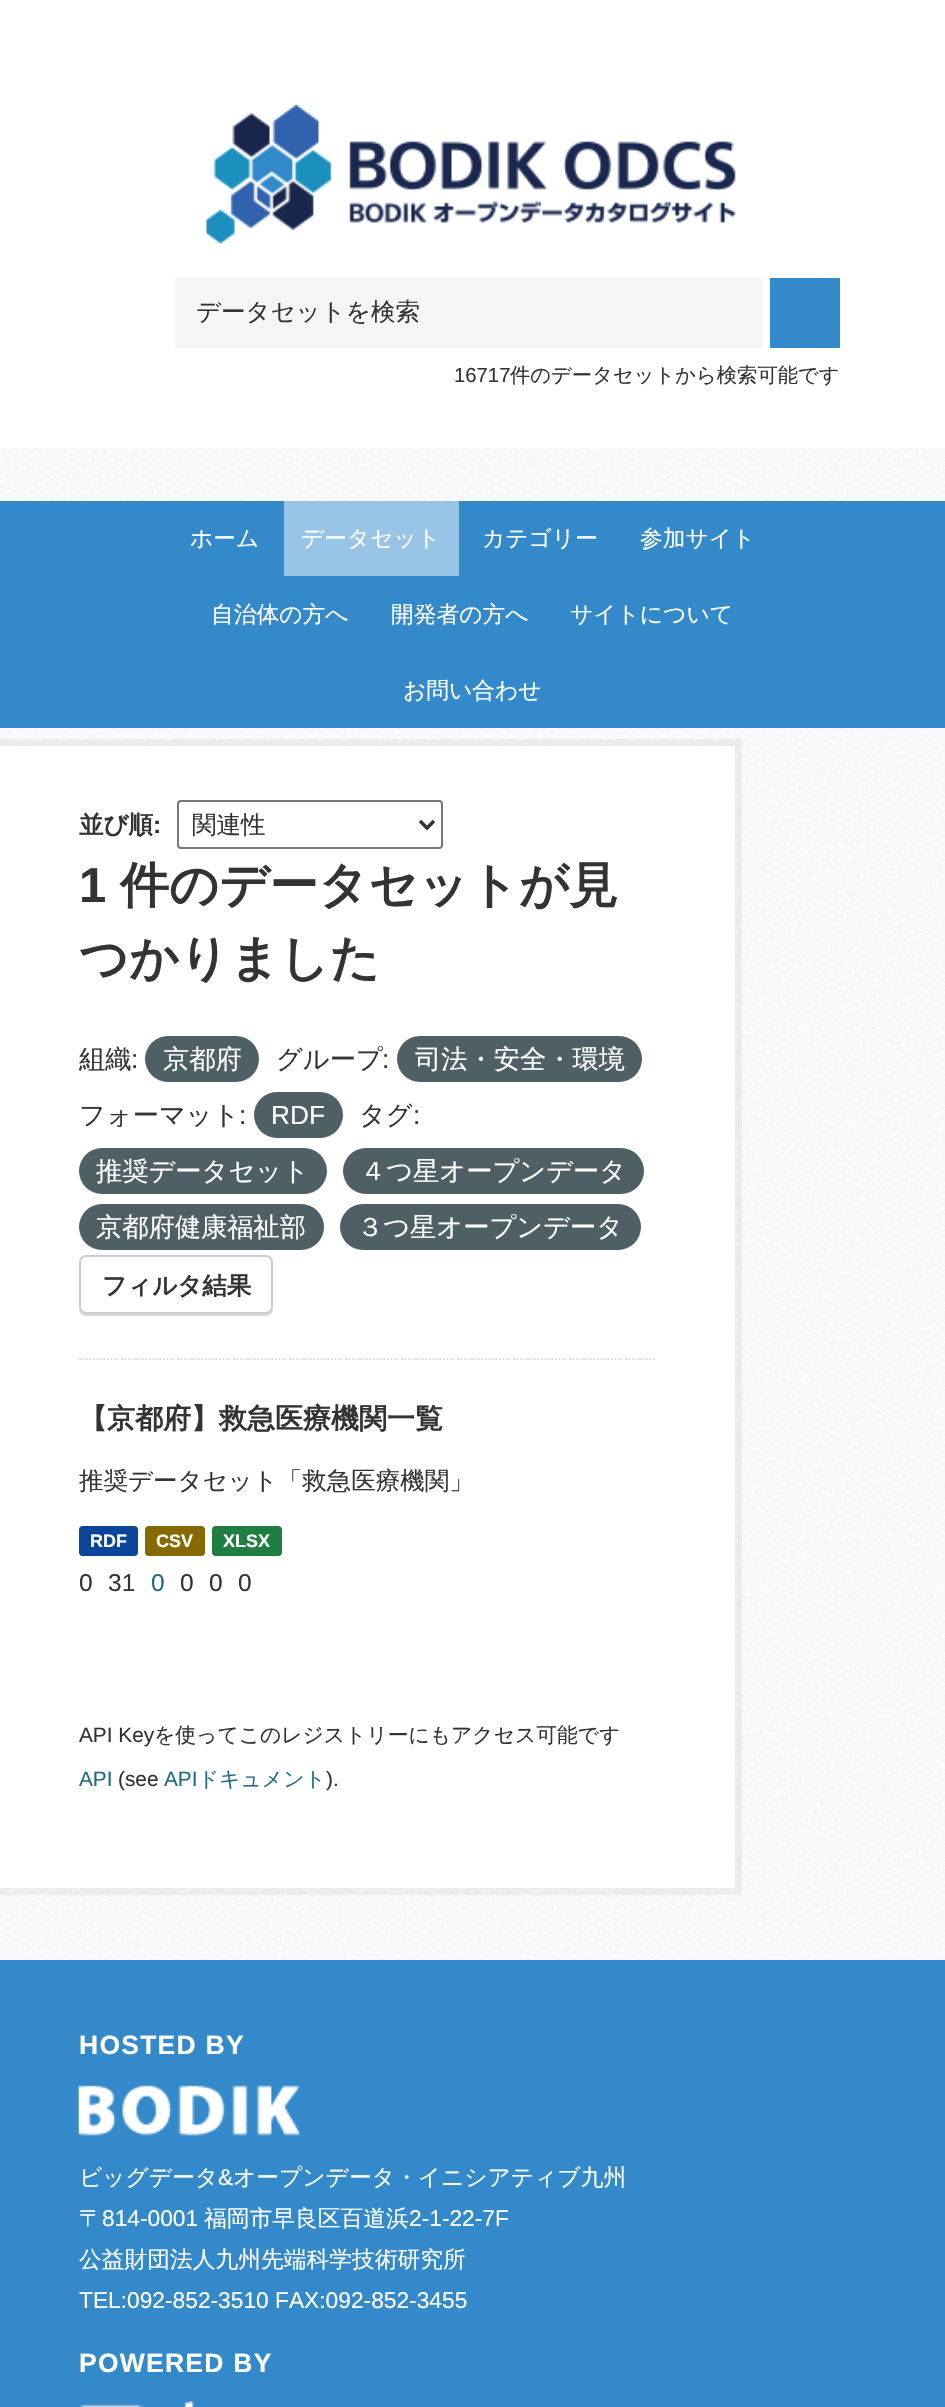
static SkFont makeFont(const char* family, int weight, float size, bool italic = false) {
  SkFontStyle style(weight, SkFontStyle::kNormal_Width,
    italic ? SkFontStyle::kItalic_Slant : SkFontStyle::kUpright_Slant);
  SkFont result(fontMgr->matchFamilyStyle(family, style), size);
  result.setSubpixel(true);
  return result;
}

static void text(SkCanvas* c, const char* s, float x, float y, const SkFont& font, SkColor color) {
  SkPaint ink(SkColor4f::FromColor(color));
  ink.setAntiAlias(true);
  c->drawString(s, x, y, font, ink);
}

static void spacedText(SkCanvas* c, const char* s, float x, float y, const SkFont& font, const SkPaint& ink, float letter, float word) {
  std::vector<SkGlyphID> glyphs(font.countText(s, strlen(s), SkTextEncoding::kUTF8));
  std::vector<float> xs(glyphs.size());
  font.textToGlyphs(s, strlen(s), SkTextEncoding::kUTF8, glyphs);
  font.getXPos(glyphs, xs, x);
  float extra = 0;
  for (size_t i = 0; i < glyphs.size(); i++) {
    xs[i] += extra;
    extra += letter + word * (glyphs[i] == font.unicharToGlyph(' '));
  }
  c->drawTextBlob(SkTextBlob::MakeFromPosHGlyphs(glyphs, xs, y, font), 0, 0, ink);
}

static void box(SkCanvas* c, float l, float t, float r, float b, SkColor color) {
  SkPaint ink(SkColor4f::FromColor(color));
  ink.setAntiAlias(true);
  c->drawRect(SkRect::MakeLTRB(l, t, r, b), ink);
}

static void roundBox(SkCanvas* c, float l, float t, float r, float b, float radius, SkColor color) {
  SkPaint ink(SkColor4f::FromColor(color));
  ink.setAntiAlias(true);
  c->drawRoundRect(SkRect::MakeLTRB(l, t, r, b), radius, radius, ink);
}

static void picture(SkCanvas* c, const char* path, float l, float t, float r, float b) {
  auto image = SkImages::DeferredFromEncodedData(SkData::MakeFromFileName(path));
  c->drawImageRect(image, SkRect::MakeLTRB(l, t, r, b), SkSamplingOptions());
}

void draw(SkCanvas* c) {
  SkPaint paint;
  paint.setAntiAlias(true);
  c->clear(0xffffffff);
  picture(c, "img_01.png", 0, 448, 945, 1960);
  picture(c, "img_02.png", 206, 105, 736, 244);
  roundBox(c, 175, 278, 763, 348, 2, 0xfff5f5f5);
  SkFont face1 = makeFont("WenQuanYi Zen Hei", 500, 24.5f);
  text(c, "データセットを検索", 196, 320, face1, 0xff333333);
  box(c, 770, 278, 840, 348, 0xff3389ca);
  SkFont face2 = makeFont("Liberation Sans", 400, 20.3f);
  text(c, "16717", 454, 382, face2, 0xff333333);
  SkFont face3 = makeFont("WenQuanYi Zen Hei", 500, 20.3f);
  text(c, "件のデータセットから検索可能です", 510, 382, face3, 0xff333333);
  box(c, 0, 501, 945, 728, 0xff3389ca);
  SkFont face4 = makeFont("WenQuanYi Zen Hei", 500, 22.75f);
  text(c, "ホーム", 190, 546, face4, 0xffffffff);
  box(c, 284, 501, 459, 576, 0xff98c4e5);
  text(c, "データセット", 301, 546, face4, 0xffffffff);
  text(c, "カテゴリー", 482, 546, face4, 0xffffffff);
  text(c, "参加サイト", 640, 546, face4, 0xffffffff);
  text(c, "自治体の方へ", 211, 622, face4, 0xffffffff);
  text(c, "開発者の方へ", 391, 622, face4, 0xffffffff);
  text(c, "サイトについて", 570, 622, face4, 0xffffffff);
  text(c, "お問い合わせ", 403, 698, face4, 0xffffffff);
  paint.setStyle(SkPaint::kStroke_Style);
  paint.setStrokeWidth(7);
  paint.setColor(0x0d000000);
  c->drawRect(SkRect::MakeLTRB(-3.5f, 742.5f, 738.5f, 1891.5f), paint);
  box(c, 0, 746, 735, 1888, 0xffffffff);
  paint.setStrokeWidth(1.8f);
  paint.setColor(0xffdddddd);
  paint.setPathEffect(SkDashPathEffect::Make({{1.75f, 1.75f}}, 0));
  c->drawPath(SkPathBuilder().moveTo(79, 1359).lineTo(656, 1359).detach(), paint);
  paint.setPathEffect(nullptr);
  SkFont face5 = makeFont("WenQuanYi Zen Hei", 700, 24.5f);
  text(c, "並び順", 79, 833, face5, 0xff333333);
  SkFont face6 = makeFont("Liberation Sans", 700, 24.5f);
  text(c, ":", 153, 833, face6, 0xff333333);
  paint.setStrokeWidth(2);
  paint.setColor(0xff767676);
  c->drawRoundRect(SkRect::MakeLTRB(178, 801, 442, 848), 3, 3, paint);
  paint.setStrokeWidth(3.5f);
  paint.setColor(0xff333333);
  c->drawPath(SkPathBuilder().moveTo(420, 821).lineTo(427, 828).lineTo(434, 821).detach(), paint);
  text(c, "関連性", 192, 833, face1, 0xff333333);
  SkFont face7 = makeFont("Liberation Sans", 700, 49);
  text(c, "1", 79, 902, face7, 0xff333333);
  SkFont face8 = makeFont("WenQuanYi Zen Hei", 700, 49);
  text(c, "件のデータセットが見", 120, 902, face8, 0xff333333);
  text(c, "つかりました", 79, 975, face8, 0xff333333);
  SkFont face9 = makeFont("WenQuanYi Zen Hei", 500, 26.25f);
  text(c, "組織", 79, 1068, face9, 0xff333333);
  SkFont face10 = makeFont("Liberation Sans", 400, 26.25f);
  text(c, ":", 131, 1068, face10, 0xff333333);
  roundBox(c, 145, 1036, 259, 1082, 23, 0xff4e5f65);
  text(c, "京都府", 163, 1068, face9, 0xffffffff);
  text(c, "グループ", 276, 1068, face9, 0xff333333);
  text(c, ":", 382, 1068, face10, 0xff333333);
  roundBox(c, 397, 1036, 642, 1082, 23, 0xff4e5f65);
  text(c, "司法・安全・環境", 415, 1068, face9, 0xffffffff);
  text(c, "フォーマット", 79, 1124, face9, 0xff333333);
  text(c, ":", 239, 1124, face10, 0xff333333);
  roundBox(c, 254, 1092, 343, 1138, 23, 0xff4e5f65);
  text(c, "RDF", 271, 1124, face10, 0xffffffff);
  text(c, "タグ", 359, 1124, face9, 0xff333333);
  text(c, ":", 413, 1124, face10, 0xff333333);
  roundBox(c, 79, 1148, 327, 1194, 23, 0xff4e5f65);
  text(c, "推奨データセット", 96, 1180, face9, 0xffffffff);
  roundBox(c, 343, 1148, 644, 1194, 23, 0xff4e5f65);
  text(c, "４つ星オープンデータ", 360, 1180, face9, 0xffffffff);
  roundBox(c, 79, 1204, 324, 1250, 23, 0xff4e5f65);
  text(c, "京都府健康福祉部", 96, 1236, face9, 0xffffffff);
  roundBox(c, 340, 1204, 641, 1250, 23, 0xff4e5f65);
  text(c, "３つ星オープンデータ", 357, 1236, face9, 0xffffffff);
  paint.setStyle(SkPaint::kFill_Style);
  paint.setColor(0xffd9d9d9);
  c->drawPath(SkPathBuilder().moveTo(79, 1309).cubicTo(79, 1313, 82, 1316, 86, 1316).lineTo(266, 1316).cubicTo(270, 1316, 273, 1313, 273, 1309).lineTo(273, 1307).cubicTo(273, 1311, 270, 1314, 266, 1314).lineTo(86, 1314).cubicTo(83, 1314, 80, 1312, 79, 1309).close().detach(), paint);
  paint.setColor(0xffffffff);
  c->drawRoundRect(SkRect::MakeLTRB(80, 1256, 272, 1313), 6, 6, paint);
  paint.setStyle(SkPaint::kStroke_Style);
  paint.setStrokeWidth(2);
  paint.setColor(0xffcccccc);
  c->drawRoundRect(SkRect::MakeLTRB(80, 1256, 272, 1313), 6, 6, paint);
  text(c, "フィルタ結果", 102, 1294, face5, 0xff333333);
  SkFont face11 = makeFont("WenQuanYi Zen Hei", 700, 28);
  text(c, "【京都府】救急医療機関一覧", 79, 1428, face11, 0xff333333);
  text(c, "推奨データセット「救急医療機関」", 79, 1489, face1, 0xff333333);
  roundBox(c, 79, 1526, 138, 1556, 4, 0xff0b4498);
  SkFont face12 = makeFont("Liberation Sans", 700, 18);
  text(c, "RDF", 90, 1547, face12, 0xffffffff);
  roundBox(c, 145, 1526, 205, 1556, 4, 0xff856a00);
  text(c, "CSV", 156, 1547, face12, 0xffffffff);
  roundBox(c, 212, 1526, 282, 1556, 4, 0xff207e42);
  text(c, "XLSX", 223, 1547, face12, 0xffffffff);
  SkFont face13 = makeFont("Liberation Sans", 400, 24.5f);
  text(c, "0", 79, 1591, face13, 0xff333333);
  text(c, "31", 108, 1591, face13, 0xff333333);
  text(c, "0", 151, 1591, face13, 0xff206b82);
  text(c, "0", 180, 1591, face13, 0xff333333);
  text(c, "0", 209, 1591, face13, 0xff333333);
  text(c, "0", 238, 1591, face13, 0xff333333);
  SkFont face14 = makeFont("Liberation Sans", 400, 20.8f);
  text(c, "API Key", 79, 1742, face14, 0xff333333);
  SkFont face15 = makeFont("WenQuanYi Zen Hei", 500, 20.8f);
  text(c, "を使ってこのレジストリーにもアクセス可能です", 154, 1742, face15, 0xff333333);
  text(c, "API", 79, 1786, face14, 0xff206b82);
  text(c, "(see", 118, 1786, face14, 0xff333333);
  text(c, "API", 164, 1786, face14, 0xff206b82);
  text(c, "ドキュメント", 198, 1786, face15, 0xff206b82);
  text(c, ").", 326, 1786, face14, 0xff333333);
  box(c, 0, 1960, 945, 2407, 0xff3389ca);
  SkFont face16 = makeFont("Liberation Sans", 700, 26.5f);
  paint.setStyle(SkPaint::kFill_Style);
  paint.setColor(0xffffffff);
  spacedText(c, "HOSTED BY", 79, 2054, face16, paint, 1.25f, 0);
  picture(c, "img_03.png", 78, 2085, 300, 2136);
  text(c, "ビッグデータ", 79, 2185, face4, 0xffffffff);
  SkFont face17 = makeFont("Liberation Sans", 400, 22.75f);
  text(c, "&", 218, 2185, face17, 0xffffffff);
  text(c, "オープンデータ・イニシアティブ九州", 233, 2185, face4, 0xffffffff);
  text(c, "〒", 79, 2226, face4, 0xffffffff);
  text(c, "814-0001", 102, 2226, face17, 0xffffffff);
  text(c, "福岡市早良区百道浜", 204, 2226, face4, 0xffffffff);
  text(c, "2-1-22-7F", 409, 2226, face17, 0xffffffff);
  text(c, "公益財団法人九州先端科学技術研究所", 79, 2267, face4, 0xffffffff);
  text(c, "TEL:092-852-3510 FAX:092-852-3455", 79, 2308, face17, 0xffffffff);
  spacedText(c, "POWERED BY", 79, 2372, face16, paint, 1.25f, 0);
  picture(c, "img_04.png", 79, 2401, 195, 2407);
}
